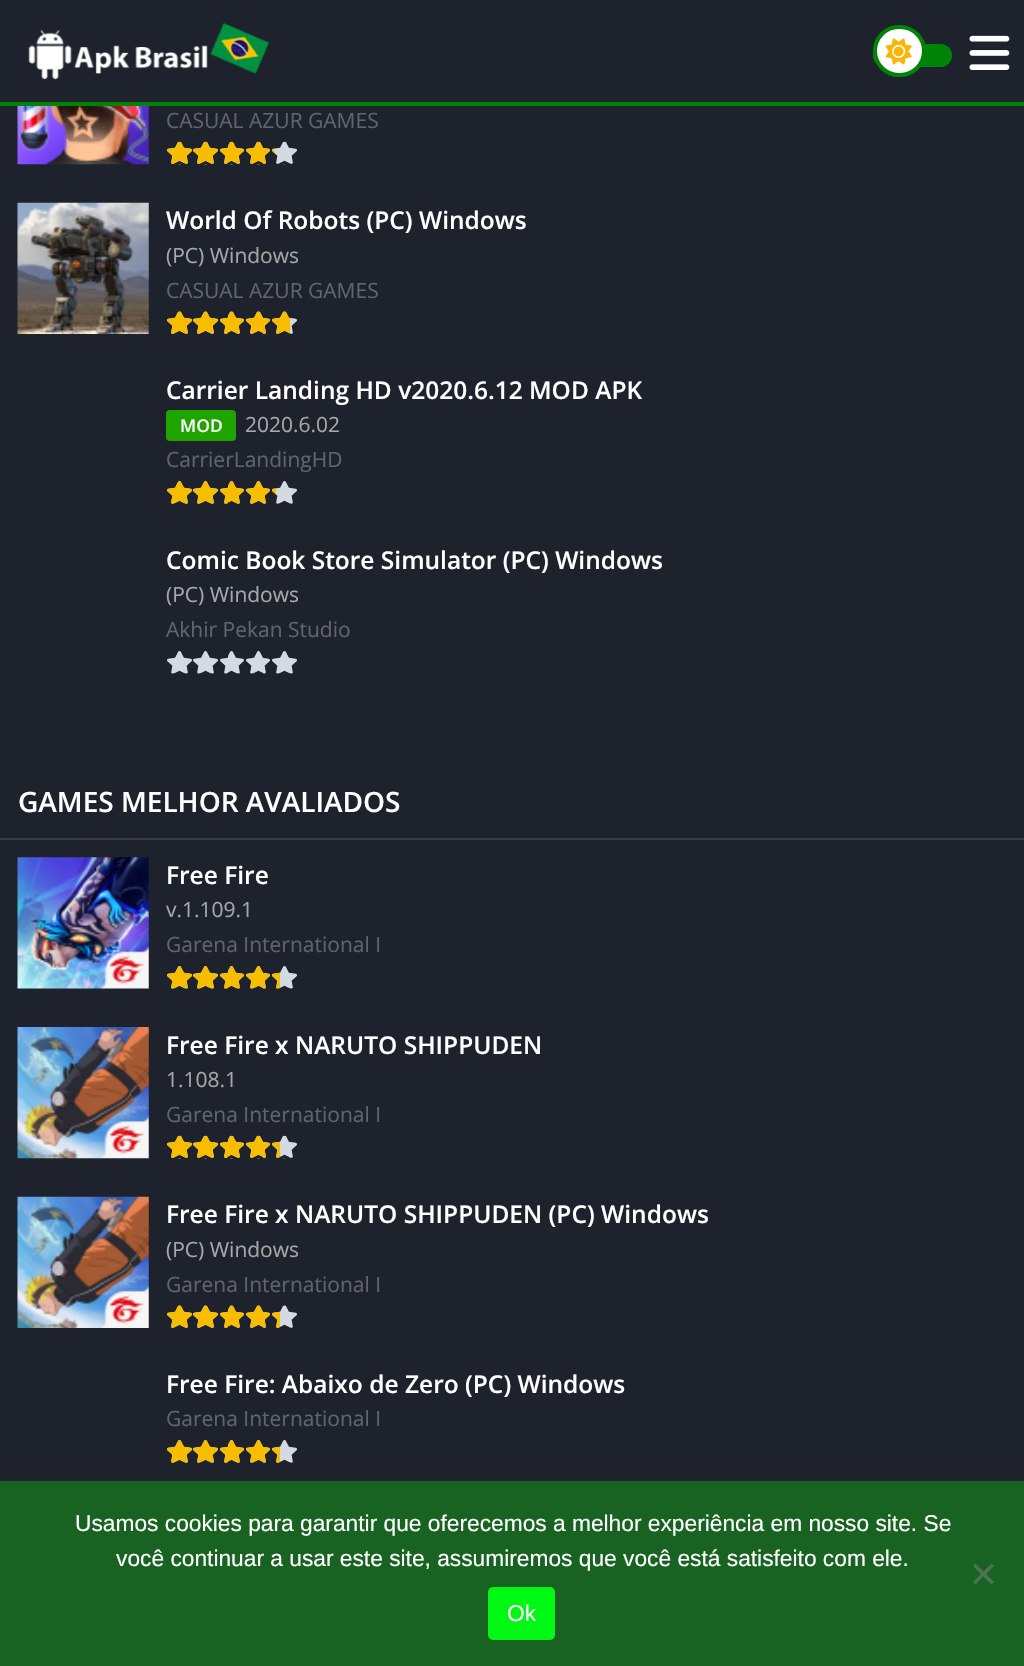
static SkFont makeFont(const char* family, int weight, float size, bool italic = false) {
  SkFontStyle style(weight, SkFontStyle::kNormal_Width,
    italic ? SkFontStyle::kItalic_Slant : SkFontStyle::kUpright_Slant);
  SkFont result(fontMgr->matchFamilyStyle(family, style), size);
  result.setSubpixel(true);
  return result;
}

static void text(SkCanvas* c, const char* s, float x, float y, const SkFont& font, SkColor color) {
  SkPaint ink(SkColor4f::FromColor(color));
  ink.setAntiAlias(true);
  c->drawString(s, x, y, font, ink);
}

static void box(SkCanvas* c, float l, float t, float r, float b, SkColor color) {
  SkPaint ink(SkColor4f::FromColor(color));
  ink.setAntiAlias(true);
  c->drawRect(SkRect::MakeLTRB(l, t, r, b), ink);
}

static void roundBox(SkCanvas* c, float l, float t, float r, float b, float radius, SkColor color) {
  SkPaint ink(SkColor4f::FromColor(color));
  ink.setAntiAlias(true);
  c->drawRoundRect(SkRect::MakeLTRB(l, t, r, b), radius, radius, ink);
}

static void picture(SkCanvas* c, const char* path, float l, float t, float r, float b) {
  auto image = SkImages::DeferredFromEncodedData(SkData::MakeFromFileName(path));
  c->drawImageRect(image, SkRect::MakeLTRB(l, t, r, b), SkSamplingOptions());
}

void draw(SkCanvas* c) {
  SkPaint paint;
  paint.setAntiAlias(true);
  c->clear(0xff1d222d);
  box(c, 0, 102, 1024, 106, 0xff008406);
  picture(c, "img_01.png", 28, 23, 269, 80);
  roundBox(c, 873, 44, 952, 67, 11.5f, 0xff008406);
  paint.setColor(0xffffffff);
  c->drawRoundRect(SkRect::MakeLTRB(875, 27, 924, 75), 24, 24, paint);
  paint.setStyle(SkPaint::kStroke_Style);
  paint.setStrokeWidth(4);
  paint.setColor(0xff008406);
  c->drawRoundRect(SkRect::MakeLTRB(875, 27, 924, 75), 24, 24, paint);
  picture(c, "img_02.png", 885, 38, 912, 65);
  picture(c, "img_03.png", 969, 35, 1010, 70);
  picture(c, "img_04.png", 17, 106, 149, 165);
  SkFont face1 = makeFont("Open Sans", 400, 21);
  text(c, "CASUAL AZUR GAMES", 166, 128, face1, 0xff61646c);
  picture(c, "img_05.png", 167, 141, 297, 165);
  picture(c, "img_06.png", 167, 141, 275, 165);
  picture(c, "img_07.png", 17, 202, 149, 334);
  SkFont face2 = makeFont("Open Sans", 600, 24.5f);
  text(c, "World Of Robots (PC) Windows", 166, 229, face2, 0xffffffff);
  text(c, "(PC) Windows", 166, 263, face1, 0xffa7a7a7);
  text(c, "CASUAL AZUR GAMES", 166, 298, face1, 0xff61646c);
  picture(c, "img_08.png", 167, 311, 297, 334);
  picture(c, "img_09.png", 167, 311, 291, 334);
  text(c, "Carrier Landing HD v2020.6.12 MOD APK", 166, 399, face2, 0xffffffff);
  roundBox(c, 166, 410, 236, 441, 4, 0xff20a400);
  SkFont face3 = makeFont("Open Sans", 600, 17.5f);
  text(c, "MOD", 180, 432, face3, 0xffffffff);
  text(c, "2020.6.02", 245, 432, face1, 0xffa7a7a7);
  text(c, "CarrierLandingHD", 166, 467, face1, 0xff61646c);
  picture(c, "img_10.png", 167, 481, 297, 504);
  picture(c, "img_11.png", 167, 481, 277, 504);
  text(c, "Comic Book Store Simulator (PC) Windows", 166, 569, face2, 0xffffffff);
  text(c, "(PC) Windows", 166, 602, face1, 0xffa7a7a7);
  text(c, "Akhir Pekan Studio", 166, 637, face1, 0xff61646c);
  picture(c, "img_12.png", 167, 651, 297, 674);
  box(c, 0, 838, 1024, 840, 0xff373b44);
  SkFont face4 = makeFont("Open Sans", 600, 28);
  text(c, "GAMES MELHOR AVALIADOS", 18, 812, face4, 0xffffffff);
  picture(c, "img_13.png", 17, 857, 149, 989);
  text(c, "Free Fire", 166, 884, face2, 0xffffffff);
  text(c, "v.1.109.1", 166, 917, face1, 0xffa7a7a7);
  text(c, "Garena International I", 166, 952, face1, 0xff61646c);
  picture(c, "img_12.png", 167, 966, 297, 989);
  picture(c, "img_14.png", 167, 966, 280, 989);
  picture(c, "img_15.png", 17, 1027, 149, 1159);
  text(c, "Free Fire x NARUTO SHIPPUDEN", 166, 1054, face2, 0xffffffff);
  text(c, "1.108.1", 166, 1087, face1, 0xffa7a7a7);
  text(c, "Garena International I", 166, 1122, face1, 0xff61646c);
  picture(c, "img_05.png", 167, 1135, 297, 1159);
  picture(c, "img_16.png", 167, 1135, 280, 1159);
  picture(c, "img_17.png", 17, 1196, 149, 1328);
  text(c, "Free Fire x NARUTO SHIPPUDEN (PC) Windows", 166, 1223, face2, 0xffffffff);
  text(c, "(PC) Windows", 166, 1257, face1, 0xffa7a7a7);
  text(c, "Garena International I", 166, 1292, face1, 0xff61646c);
  picture(c, "img_08.png", 167, 1305, 297, 1328);
  picture(c, "img_18.png", 167, 1305, 280, 1328);
  text(c, "Free Fire: Abaixo de Zero (PC) Windows", 166, 1393, face2, 0xffffffff);
  text(c, "Garena International I", 166, 1426, face1, 0xff61646c);
  picture(c, "img_10.png", 167, 1440, 297, 1463);
  picture(c, "img_19.png", 167, 1440, 280, 1463);
  box(c, 0, 1481, 1024, 1666, 0xff186321);
  SkFont face5 = makeFont("Liberation Sans", 400, 22.75f);
  text(c, "Usamos cookies para garantir que oferecemos a melhor experiência em nosso site. Se", 75, 1531, face5, 0xffffffff);
  text(c, "você continuar a usar este site, assumiremos que você está satisfeito com ele.", 116, 1566, face5, 0xffffffff);
  paint.setStyle(SkPaint::kFill_Style);
  paint.setColor(0xff4c7251);
  c->drawPath(SkPathBuilder().moveTo(991.5f, 1563.5f).lineTo(994, 1566).lineTo(975.5f, 1584.5f).lineTo(973, 1582).close().detach(), paint);
  c->drawPath(SkPathBuilder().moveTo(973, 1566).lineTo(975.5f, 1563.5f).lineTo(994, 1582).lineTo(991.5f, 1584.5f).close().detach(), paint);
  roundBox(c, 488, 1587, 555, 1640, 5, 0xff00f914);
  text(c, "Ok", 507, 1621, face5, 0xffffffff);
}
